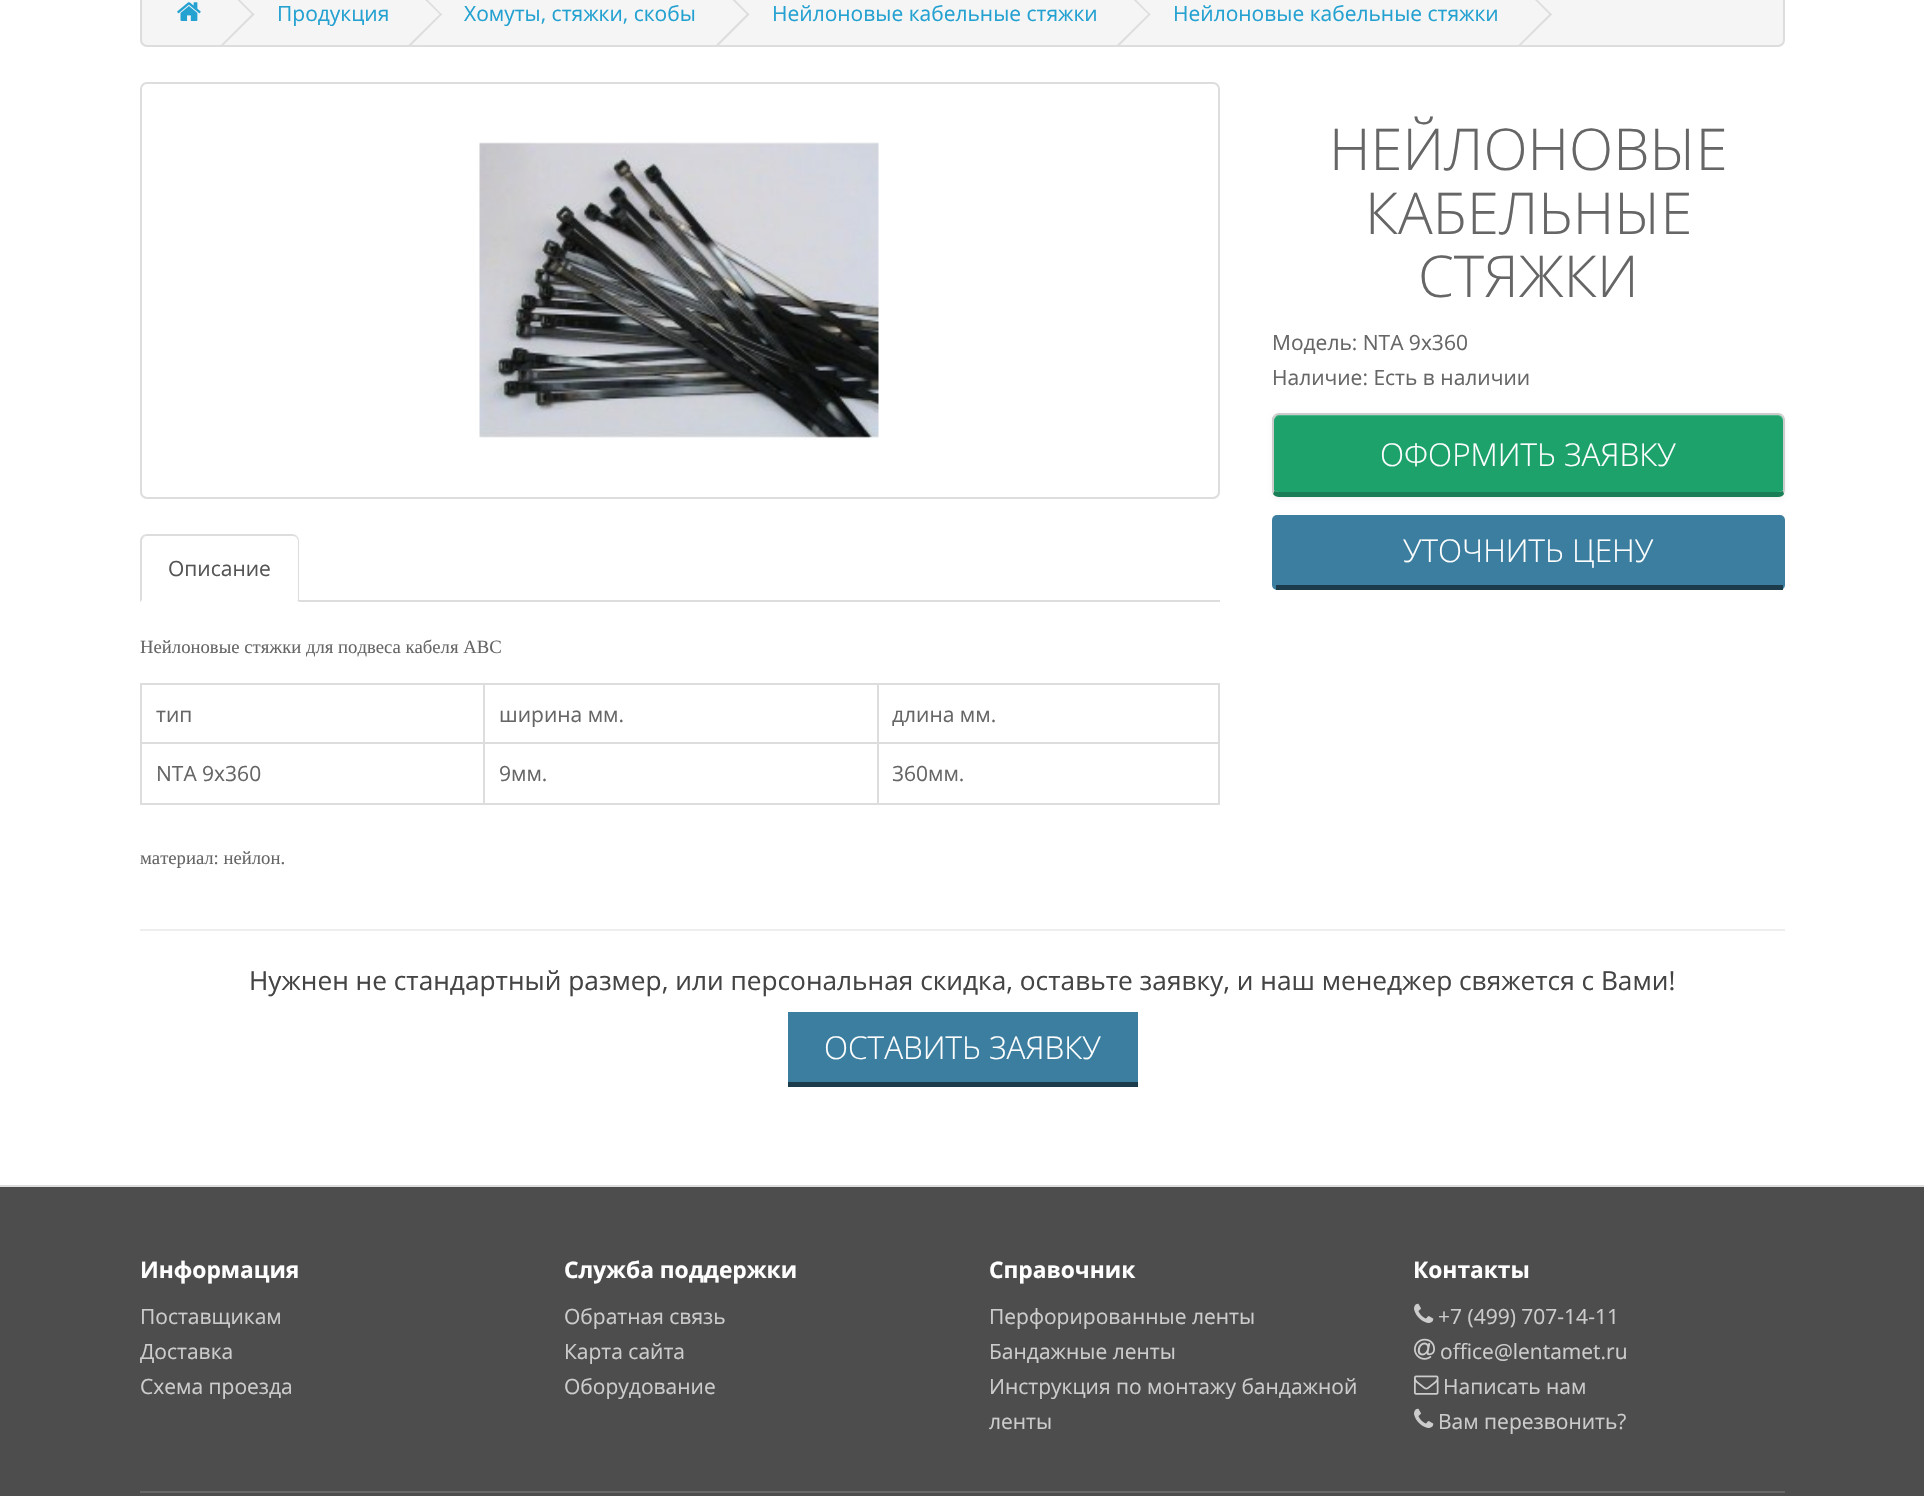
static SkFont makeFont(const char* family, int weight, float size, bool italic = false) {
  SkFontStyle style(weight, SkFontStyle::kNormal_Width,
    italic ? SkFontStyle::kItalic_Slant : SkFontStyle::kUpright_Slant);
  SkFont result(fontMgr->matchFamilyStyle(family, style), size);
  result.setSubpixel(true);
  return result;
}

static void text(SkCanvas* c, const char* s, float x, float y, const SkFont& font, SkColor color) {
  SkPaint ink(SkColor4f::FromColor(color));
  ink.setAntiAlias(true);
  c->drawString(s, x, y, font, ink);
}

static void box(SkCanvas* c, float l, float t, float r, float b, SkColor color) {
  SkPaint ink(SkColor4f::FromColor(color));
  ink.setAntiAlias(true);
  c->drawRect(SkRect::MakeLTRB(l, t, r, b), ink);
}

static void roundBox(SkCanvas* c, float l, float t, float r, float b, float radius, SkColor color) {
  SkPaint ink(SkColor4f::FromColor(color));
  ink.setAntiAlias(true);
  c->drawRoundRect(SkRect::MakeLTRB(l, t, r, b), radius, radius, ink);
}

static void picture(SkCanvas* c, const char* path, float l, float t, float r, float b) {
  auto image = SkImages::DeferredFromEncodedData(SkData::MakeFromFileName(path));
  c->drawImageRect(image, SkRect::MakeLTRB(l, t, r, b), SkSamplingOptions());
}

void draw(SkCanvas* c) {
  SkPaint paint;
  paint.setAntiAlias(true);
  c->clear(0xffffffff);
  paint.setColor(0xfff5f5f5);
  c->drawRoundRect(SkRect::MakeLTRB(141, -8, 1784, 46), 6, 6, paint);
  paint.setStyle(SkPaint::kStroke_Style);
  paint.setStrokeWidth(2);
  paint.setColor(0xffdddddd);
  c->drawRoundRect(SkRect::MakeLTRB(141, -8, 1784, 46), 6, 6, paint);
  picture(c, "img_01.png", 177, 2, 201, 21);
  paint.setStyle(SkPaint::kFill_Style);
  c->drawPath(SkPathBuilder().moveTo(221, -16.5f).lineTo(222, -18).lineTo(254.5f, 14.5f).lineTo(253, 15.5f).close().detach(), paint);
  c->drawPath(SkPathBuilder().moveTo(221, 45).lineTo(253, 13).lineTo(254.5f, 14.5f).lineTo(222, 46.5f).close().detach(), paint);
  SkFont face1 = makeFont("Open Sans", 400, 21);
  text(c, "Продукция", 277, 21, face1, 0xff23a1d1);
  c->drawPath(SkPathBuilder().moveTo(408.5f, -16.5f).lineTo(410, -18).lineTo(442, 14.5f).lineTo(441, 15.5f).close().detach(), paint);
  c->drawPath(SkPathBuilder().moveTo(408.5f, 45).lineTo(441, 13).lineTo(442, 14.5f).lineTo(410, 46.5f).close().detach(), paint);
  text(c, "Хомуты, стяжки, скобы", 464, 21, face1, 0xff23a1d1);
  c->drawPath(SkPathBuilder().moveTo(716, -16.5f).lineTo(717.5f, -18).lineTo(749.5f, 14.5f).lineTo(748, 15.5f).close().detach(), paint);
  c->drawPath(SkPathBuilder().moveTo(716, 45).lineTo(748, 13).lineTo(749.5f, 14.5f).lineTo(717.5f, 46.5f).close().detach(), paint);
  text(c, "Нейлоновые кабельные стяжки", 772, 21, face1, 0xff23a1d1);
  c->drawPath(SkPathBuilder().moveTo(1117, -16.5f).lineTo(1118.5f, -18).lineTo(1150.5f, 14.5f).lineTo(1149.5f, 15.5f).close().detach(), paint);
  c->drawPath(SkPathBuilder().moveTo(1117, 45).lineTo(1149.5f, 13).lineTo(1150.5f, 14.5f).lineTo(1118.5f, 46.5f).close().detach(), paint);
  text(c, "Нейлоновые кабельные стяжки", 1173, 21, face1, 0xff23a1d1);
  c->drawPath(SkPathBuilder().moveTo(1518.5f, -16.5f).lineTo(1519.5f, -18).lineTo(1552, 14.5f).lineTo(1550.5f, 15.5f).close().detach(), paint);
  c->drawPath(SkPathBuilder().moveTo(1518.5f, 45).lineTo(1550.5f, 13).lineTo(1552, 14.5f).lineTo(1519.5f, 46.5f).close().detach(), paint);
  SkFont face2 = makeFont("Open Sans", 300, 57.75f);
  text(c, "НЕЙЛОНОВЫЕ", 1329, 170, face2, 0xff666666);
  text(c, "КАБЕЛЬНЫЕ", 1365, 234, face2, 0xff666666);
  text(c, "СТЯЖКИ", 1418, 297, face2, 0xff666666);
  text(c, "Модель: NTA 9x360", 1272, 350, face1, 0xff666666);
  text(c, "Наличие: Есть в наличии", 1272, 385, face1, 0xff666666);
  paint.setColor(0x0d000000);
  paint.setMaskFilter(SkMaskFilter::MakeBlur(kNormal_SkBlurStyle, 2));
  c->drawRoundRect(SkRect::MakeLTRB(1272, 415, 1785, 499), 7, 7, paint);
  paint.setMaskFilter(nullptr);
  paint.setColor(0xff1da26c);
  c->drawPath(SkPathBuilder().moveTo(1279, 415).lineTo(1778, 415).cubicTo(1781, 415, 1783, 417, 1783, 420).lineTo(1783, 490).cubicTo(1783, 491, 1781, 492, 1778, 492).lineTo(1279, 492).cubicTo(1276, 492, 1274, 491, 1274, 490).lineTo(1274, 420).cubicTo(1274, 417, 1276, 415, 1279, 415).close().detach(), paint);
  paint.setColor(0x33ffffff);
  c->drawPath(SkPathBuilder().moveTo(1279, 416).lineTo(1778, 416).cubicTo(1781, 416, 1783, 419, 1783, 422).lineTo(1783, 491).lineTo(1783, 420).cubicTo(1783, 417, 1781, 415, 1778, 415).lineTo(1279, 415).cubicTo(1276, 415, 1274, 417, 1274, 420).lineTo(1274, 422).cubicTo(1274, 419, 1276, 416, 1279, 416).close().detach(), paint);
  paint.setColor(0xffcccccc);
  c->drawPath(SkPathBuilder().moveTo(1279, 413).cubicTo(1277, 413, 1275, 414, 1274, 415).lineTo(1276, 416).cubicTo(1276, 415, 1278, 415, 1279, 415).lineTo(1778, 415).cubicTo(1780, 415, 1781, 416, 1782, 416).lineTo(1783, 415).cubicTo(1782, 414, 1780, 413, 1778, 413).close().detach(), paint);
  c->drawPath(SkPathBuilder().moveTo(1785, 490).lineTo(1785, 420).cubicTo(1785, 418, 1784, 416, 1783, 415).lineTo(1782, 416).lineTo(1783, 419).lineTo(1783, 491).lineTo(1784, 494).close().detach(), paint);
  paint.setColor(0xff197d55);
  c->drawPath(SkPathBuilder().moveTo(1279, 497).lineTo(1778, 497).cubicTo(1781, 497, 1783, 496, 1784, 494).lineTo(1783, 491).cubicTo(1782, 491, 1780, 492, 1778, 492).lineTo(1279, 492).cubicTo(1277, 492, 1275, 491, 1274, 491).lineTo(1273, 494).cubicTo(1274, 496, 1277, 497, 1279, 497).close().detach(), paint);
  paint.setColor(0xffcccccc);
  c->drawPath(SkPathBuilder().moveTo(1272, 418).lineTo(1274, 415).lineTo(1276, 416).lineTo(1274, 419).lineTo(1274, 491).lineTo(1273, 494).lineTo(1272, 492).close().detach(), paint);
  SkFont face3 = makeFont("Open Sans", 300, 31.5f);
  text(c, "ОФОРМИТЬ ЗАЯВКУ", 1380, 466, face3, 0xffffffff);
  roundBox(c, 1272, 515, 1785, 590, 5, 0xff3c7e9f);
  box(c, 1276, 585, 1783, 590, 0xff1c3c4c);
  text(c, "УТОЧНИТЬ ЦЕНУ", 1403, 562, face3, 0xffffffff);
  paint.setStyle(SkPaint::kStroke_Style);
  paint.setColor(0xffdddddd);
  c->drawRoundRect(SkRect::MakeLTRB(141, 83, 1219, 498), 6, 6, paint);
  picture(c, "img_02.png", 479, 142, 879, 440);
  box(c, 299, 600, 1220, 602, 0xffdddddd);
  paint.setStyle(SkPaint::kFill_Style);
  c->drawPath(SkPathBuilder().moveTo(147, 534).cubicTo(145, 534, 143, 535, 142, 536).lineTo(144, 537).cubicTo(144, 536, 146, 536, 147, 536).lineTo(292, 536).cubicTo(293, 536, 295, 536, 296, 537).lineTo(297, 536).cubicTo(296, 535, 294, 534, 292, 534).close().detach(), paint);
  c->drawPath(SkPathBuilder().moveTo(299, 602).lineTo(299, 541).cubicTo(299, 539, 298, 537, 297, 536).lineTo(296, 537).lineTo(298, 540).lineTo(298, 600).lineTo(297, 600).close().detach(), paint);
  c->drawPath(SkPathBuilder().moveTo(140, 602).lineTo(142, 600).lineTo(142, 541).cubicTo(142, 539, 143, 538, 144, 537).lineTo(142, 536).cubicTo(141, 537, 140, 539, 140, 541).close().detach(), paint);
  text(c, "Описание", 168, 576, face1, 0xff555555);
  SkFont face4 = makeFont("Liberation Serif", 400, 18.7f);
  text(c, "Нейлоновые стяжки для подвеса кабеля ABC", 140, 653, face4, 0xff666666);
  box(c, 140, 683, 1220, 685, 0xffdddddd);
  box(c, 1218, 683, 1220, 805, 0xffdddddd);
  box(c, 140, 803, 1220, 805, 0xffdddddd);
  box(c, 140, 683, 142, 805, 0xffdddddd);
  text(c, "тип", 156, 722, face1, 0xff666666);
  box(c, 877, 742, 1220, 744, 0xffdddddd);
  box(c, 877, 742, 879, 805, 0xffdddddd);
  box(c, 483, 742, 879, 744, 0xffdddddd);
  box(c, 483, 742, 485, 805, 0xffdddddd);
  box(c, 140, 742, 485, 744, 0xffdddddd);
  box(c, 483, 683, 485, 744, 0xffdddddd);
  text(c, "ширина мм.", 499, 722, face1, 0xff666666);
  box(c, 877, 683, 879, 744, 0xffdddddd);
  text(c, "длина мм.", 892, 722, face1, 0xff666666);
  text(c, "NTA 9x360", 156, 781, face1, 0xff666666);
  text(c, "9мм.", 499, 781, face1, 0xff666666);
  text(c, "360мм.", 892, 781, face1, 0xff666666);
  text(c, "материал: нейлон.", 140, 864, face4, 0xff666666);
  box(c, 140, 929, 1785, 931, 0xffeeeeee);
  SkFont face5 = makeFont("Open Sans", 400, 26.25f);
  text(c, "Нужнен не стандартный размер, или персональная скидка, оставьте заявку, и наш менеджер свяжется с Вами!", 249, 990, face5, 0xff444444);
  box(c, 788, 1012, 1138, 1082, 0xff3c7e9f);
  box(c, 788, 1082, 1138, 1087, 0xff1c3c4c);
  text(c, "ОСТАВИТЬ ЗАЯВКУ", 824, 1059, face3, 0xffffffff);
  box(c, 0, 1187, 1924, 1496, 0xff4e4d4e);
  box(c, 0, 1185, 1924, 1187, 0xffdddddd);
  SkFont face6 = makeFont("Open Sans", 700, 22.75f);
  text(c, "Информация", 140, 1278, face6, 0xffffffff);
  text(c, "Поставщикам", 140, 1324, face1, 0xffcccccc);
  text(c, "Доставка", 140, 1359, face1, 0xffcccccc);
  text(c, "Схема проезда", 140, 1394, face1, 0xffcccccc);
  text(c, "Служба поддержки", 564, 1278, face6, 0xffffffff);
  text(c, "Обратная связь", 564, 1324, face1, 0xffcccccc);
  text(c, "Карта сайта", 564, 1359, face1, 0xffcccccc);
  text(c, "Оборудование", 564, 1394, face1, 0xffcccccc);
  text(c, "Справочник", 989, 1278, face6, 0xffffffff);
  text(c, "Перфорированные ленты", 989, 1324, face1, 0xffcccccc);
  text(c, "Бандажные ленты", 989, 1359, face1, 0xffcccccc);
  text(c, "Инструкция по монтажу бандажной", 989, 1394, face1, 0xffcccccc);
  text(c, "ленты", 989, 1429, face1, 0xffcccccc);
  text(c, "Контакты", 1413, 1278, face6, 0xffffffff);
  picture(c, "img_03.png", 1414, 1303, 1434, 1323);
  text(c, "+7 (499) 707-14-11", 1438, 1324, face1, 0xffcccccc);
  picture(c, "img_04.png", 1414, 1338, 1435, 1360);
  text(c, "office@lentamet.ru", 1440, 1359, face1, 0xffcccccc);
  picture(c, "img_05.png", 1414, 1375, 1439, 1395);
  text(c, "Написать нам", 1443, 1394, face1, 0xffcccccc);
  picture(c, "img_03.png", 1414, 1408, 1434, 1428);
  text(c, "Вам перезвонить?", 1438, 1429, face1, 0xffcccccc);
  box(c, 140, 1491, 1785, 1493, 0xff666666);
}
